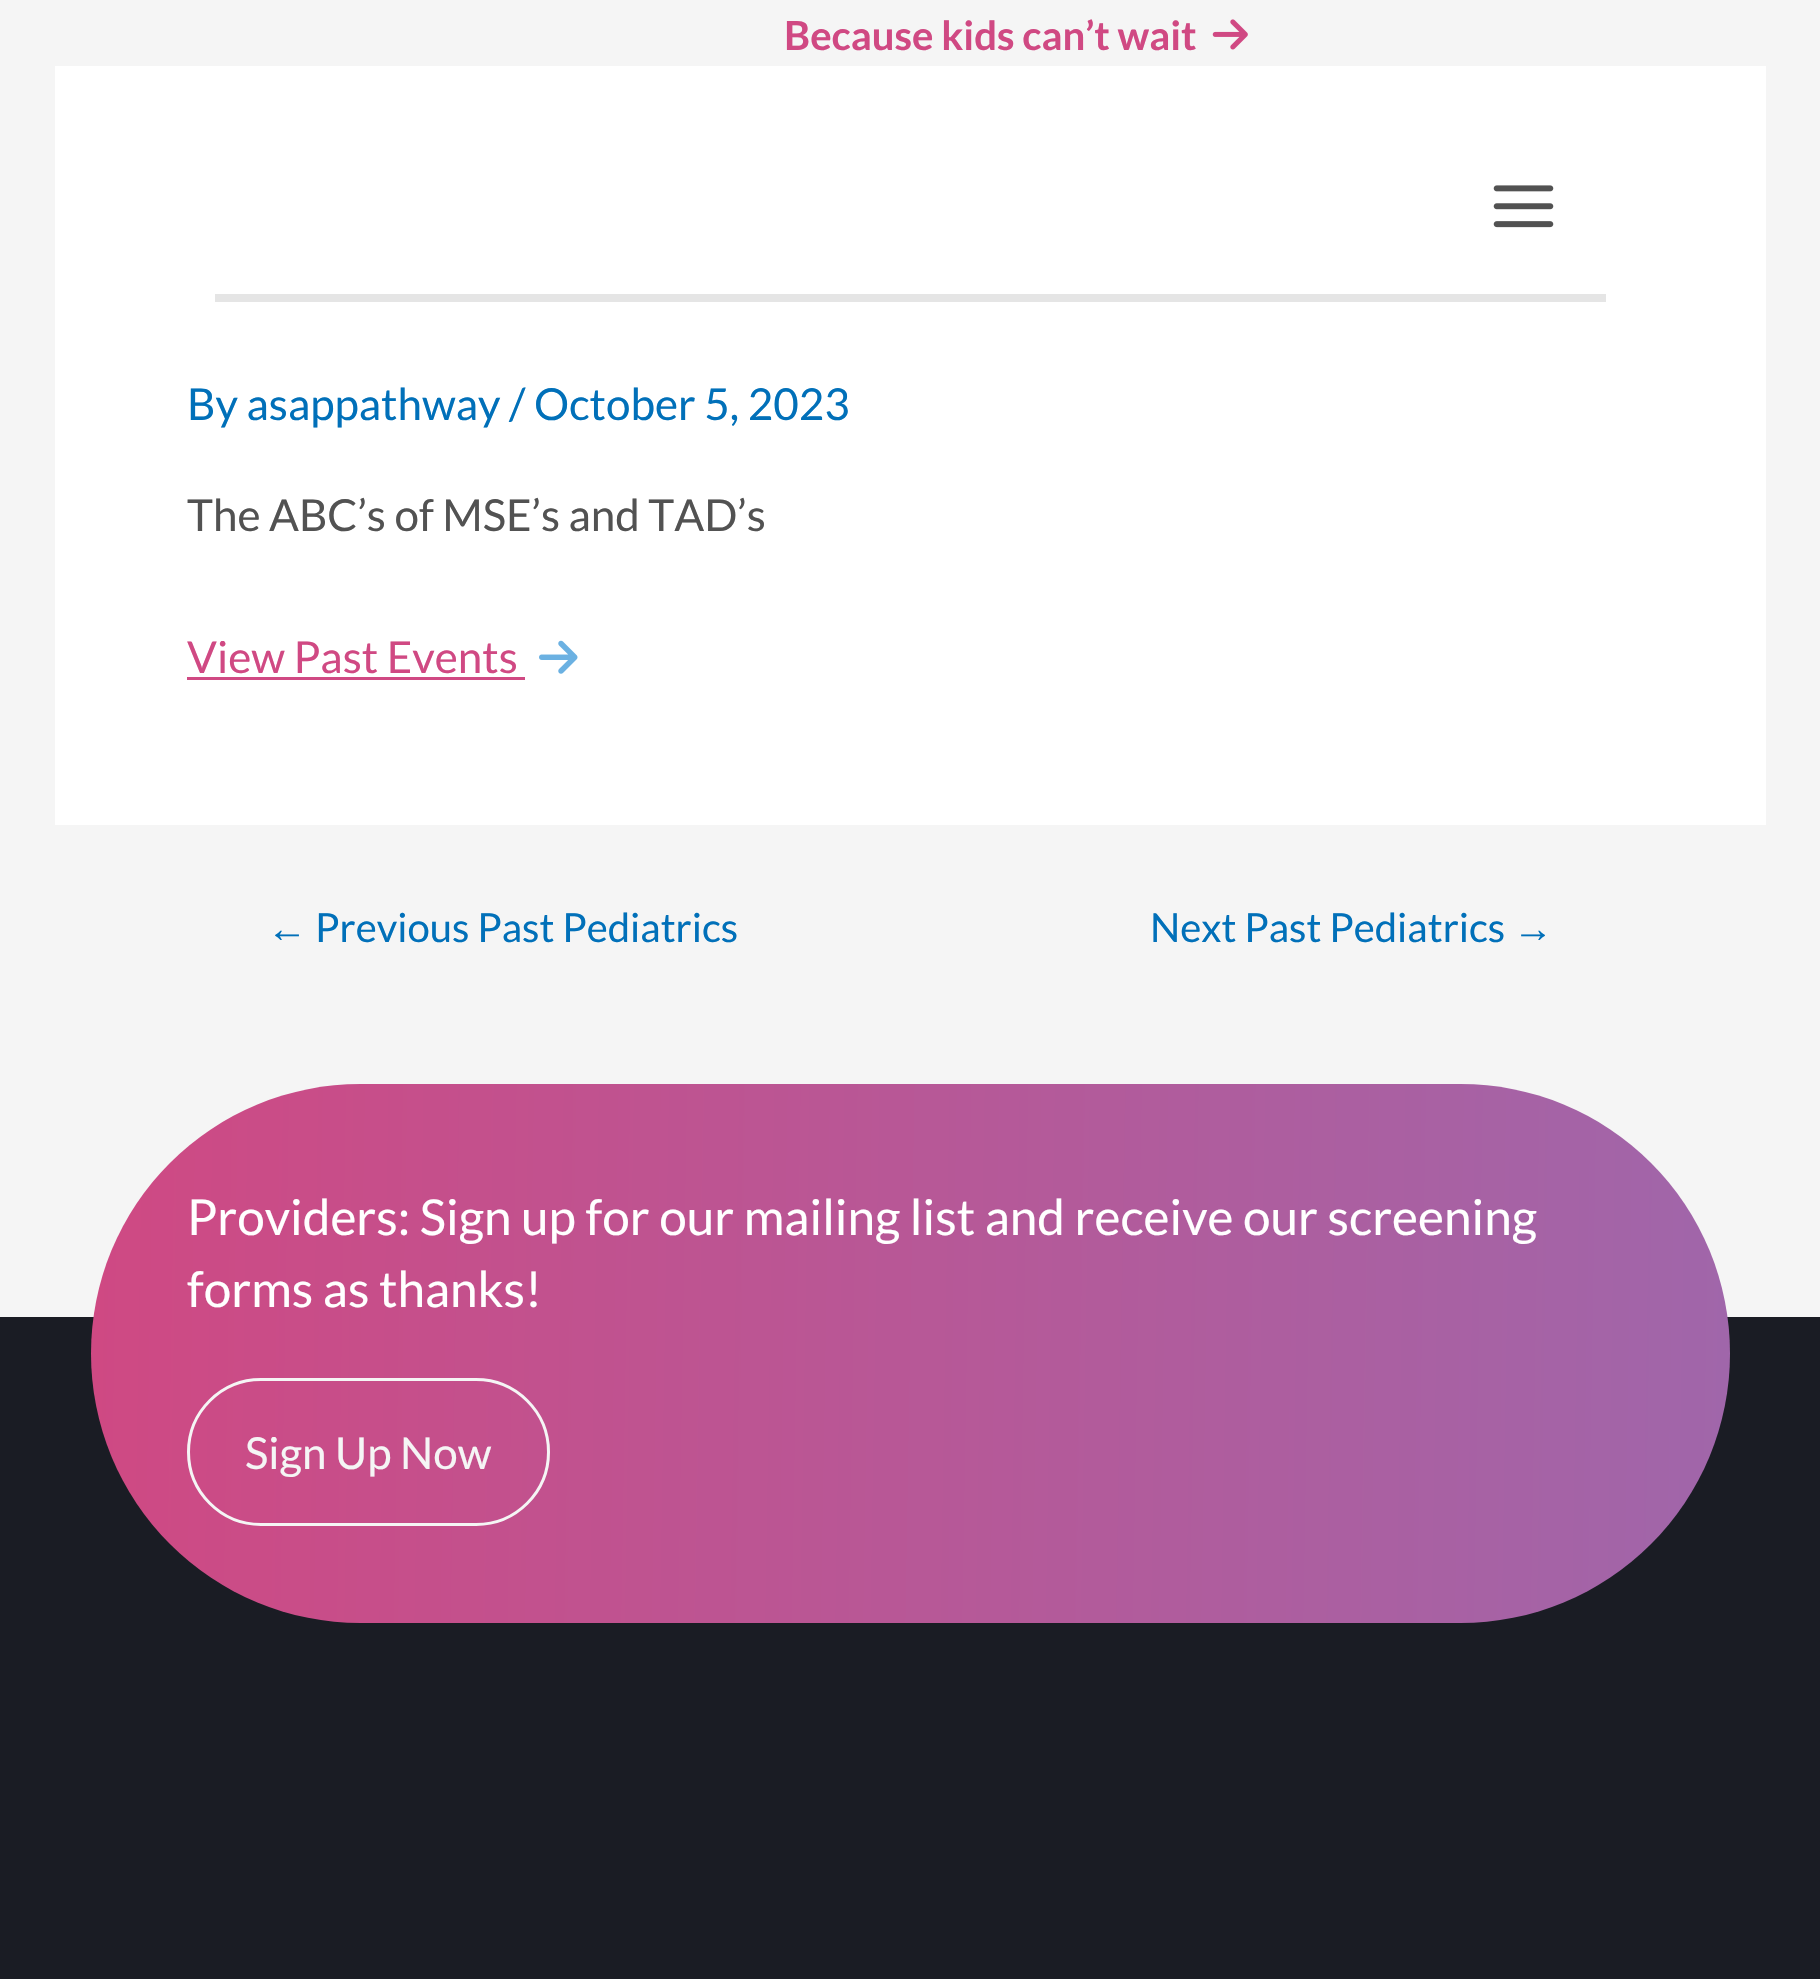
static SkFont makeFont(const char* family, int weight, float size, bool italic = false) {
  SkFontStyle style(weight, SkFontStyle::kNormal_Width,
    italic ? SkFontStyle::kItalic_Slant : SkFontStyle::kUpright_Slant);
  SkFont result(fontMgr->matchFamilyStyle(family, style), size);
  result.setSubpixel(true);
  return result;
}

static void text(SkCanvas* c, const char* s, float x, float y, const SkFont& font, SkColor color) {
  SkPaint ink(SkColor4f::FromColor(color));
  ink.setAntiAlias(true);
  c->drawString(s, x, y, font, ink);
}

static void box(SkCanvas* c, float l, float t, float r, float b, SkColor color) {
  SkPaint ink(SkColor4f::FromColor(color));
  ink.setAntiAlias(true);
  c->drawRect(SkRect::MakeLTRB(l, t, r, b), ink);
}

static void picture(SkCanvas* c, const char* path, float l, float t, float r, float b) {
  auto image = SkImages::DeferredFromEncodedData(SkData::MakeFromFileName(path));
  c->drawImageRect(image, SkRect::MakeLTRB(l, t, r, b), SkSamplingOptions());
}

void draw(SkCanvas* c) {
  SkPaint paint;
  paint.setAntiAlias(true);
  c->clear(0xfff5f5f5);
  SkFont face1 = makeFont("Lato", 700, 40.1f);
  text(c, "Because kids can’t wait", 784, 50, face1, 0xffd04983);
  picture(c, "img_01.png", 1212, 19, 1248, 50);
  box(c, 55, 66, 1766, 825, 0xffffffff);
  box(c, 215, 294, 1606, 302, 0xffe5e5e5);
  picture(c, "img_02.png", 1493, 185, 1554, 228);
  SkFont face2 = makeFont("Lato", 400, 44);
  text(c, "By asappathway / October 5, 2023", 187, 420, face2, 0xff0170b9);
  text(c, "The ABC’s of MSE’s and TAD’s", 187, 531, face2, 0xff525252);
  text(c, "View Past Events", 187, 673, face2, 0xffd04983);
  box(c, 187, 677, 525, 680, 0xffd04983);
  picture(c, "img_03.png", 539, 640, 578, 674);
  SkFont face3 = makeFont("Liberation Sans", 400, 40.1f);
  text(c, "←", 267, 942, face3, 0xff0170b9);
  SkFont face4 = makeFont("Lato", 400, 40.1f);
  text(c, "Previous Past Pediatrics", 315, 942, face4, 0xff0170b9);
  text(c, "Next Past Pediatrics", 1150, 942, face4, 0xff0170b9);
  text(c, "→", 1513, 942, face3, 0xff0170b9);
  box(c, 0, 1317, 1820, 1979, 0xff1a1c24);
  {
    const SkColor colors[] = {0xffcf4983, 0xffa066aa};
    const float stops[] = {0, 1};
    const SkPoint ends[] = {{86, 1339}, {1734, 1367}};
    paint.setShader(SkGradientShader::MakeLinear(ends, colors, stops, 2, SkTileMode::kClamp));
    paint.setAlpha(255);
  }
  c->drawRoundRect(SkRect::MakeLTRB(91, 1084, 1730, 1623), 269.5f, 269.5f, paint);
  SkFont face5 = makeFont("Lato", 400, 49.5f);
  text(c, "Providers: Sign up for our mailing list and receive our screening", 187, 1235, face5, 0xffffffff);
  text(c, "forms as thanks!", 187, 1307, face5, 0xffffffff);
  paint.setStyle(SkPaint::kStroke_Style);
  paint.setStrokeWidth(3);
  paint.setShader(nullptr);
  paint.setColor(0xfff5f5f5);
  c->drawRoundRect(SkRect::MakeLTRB(188.5f, 1379.5f, 548.5f, 1524.5f), 72.5f, 72.5f, paint);
  text(c, "Sign Up Now", 245, 1469, face2, 0xfff5f5f5);
}
